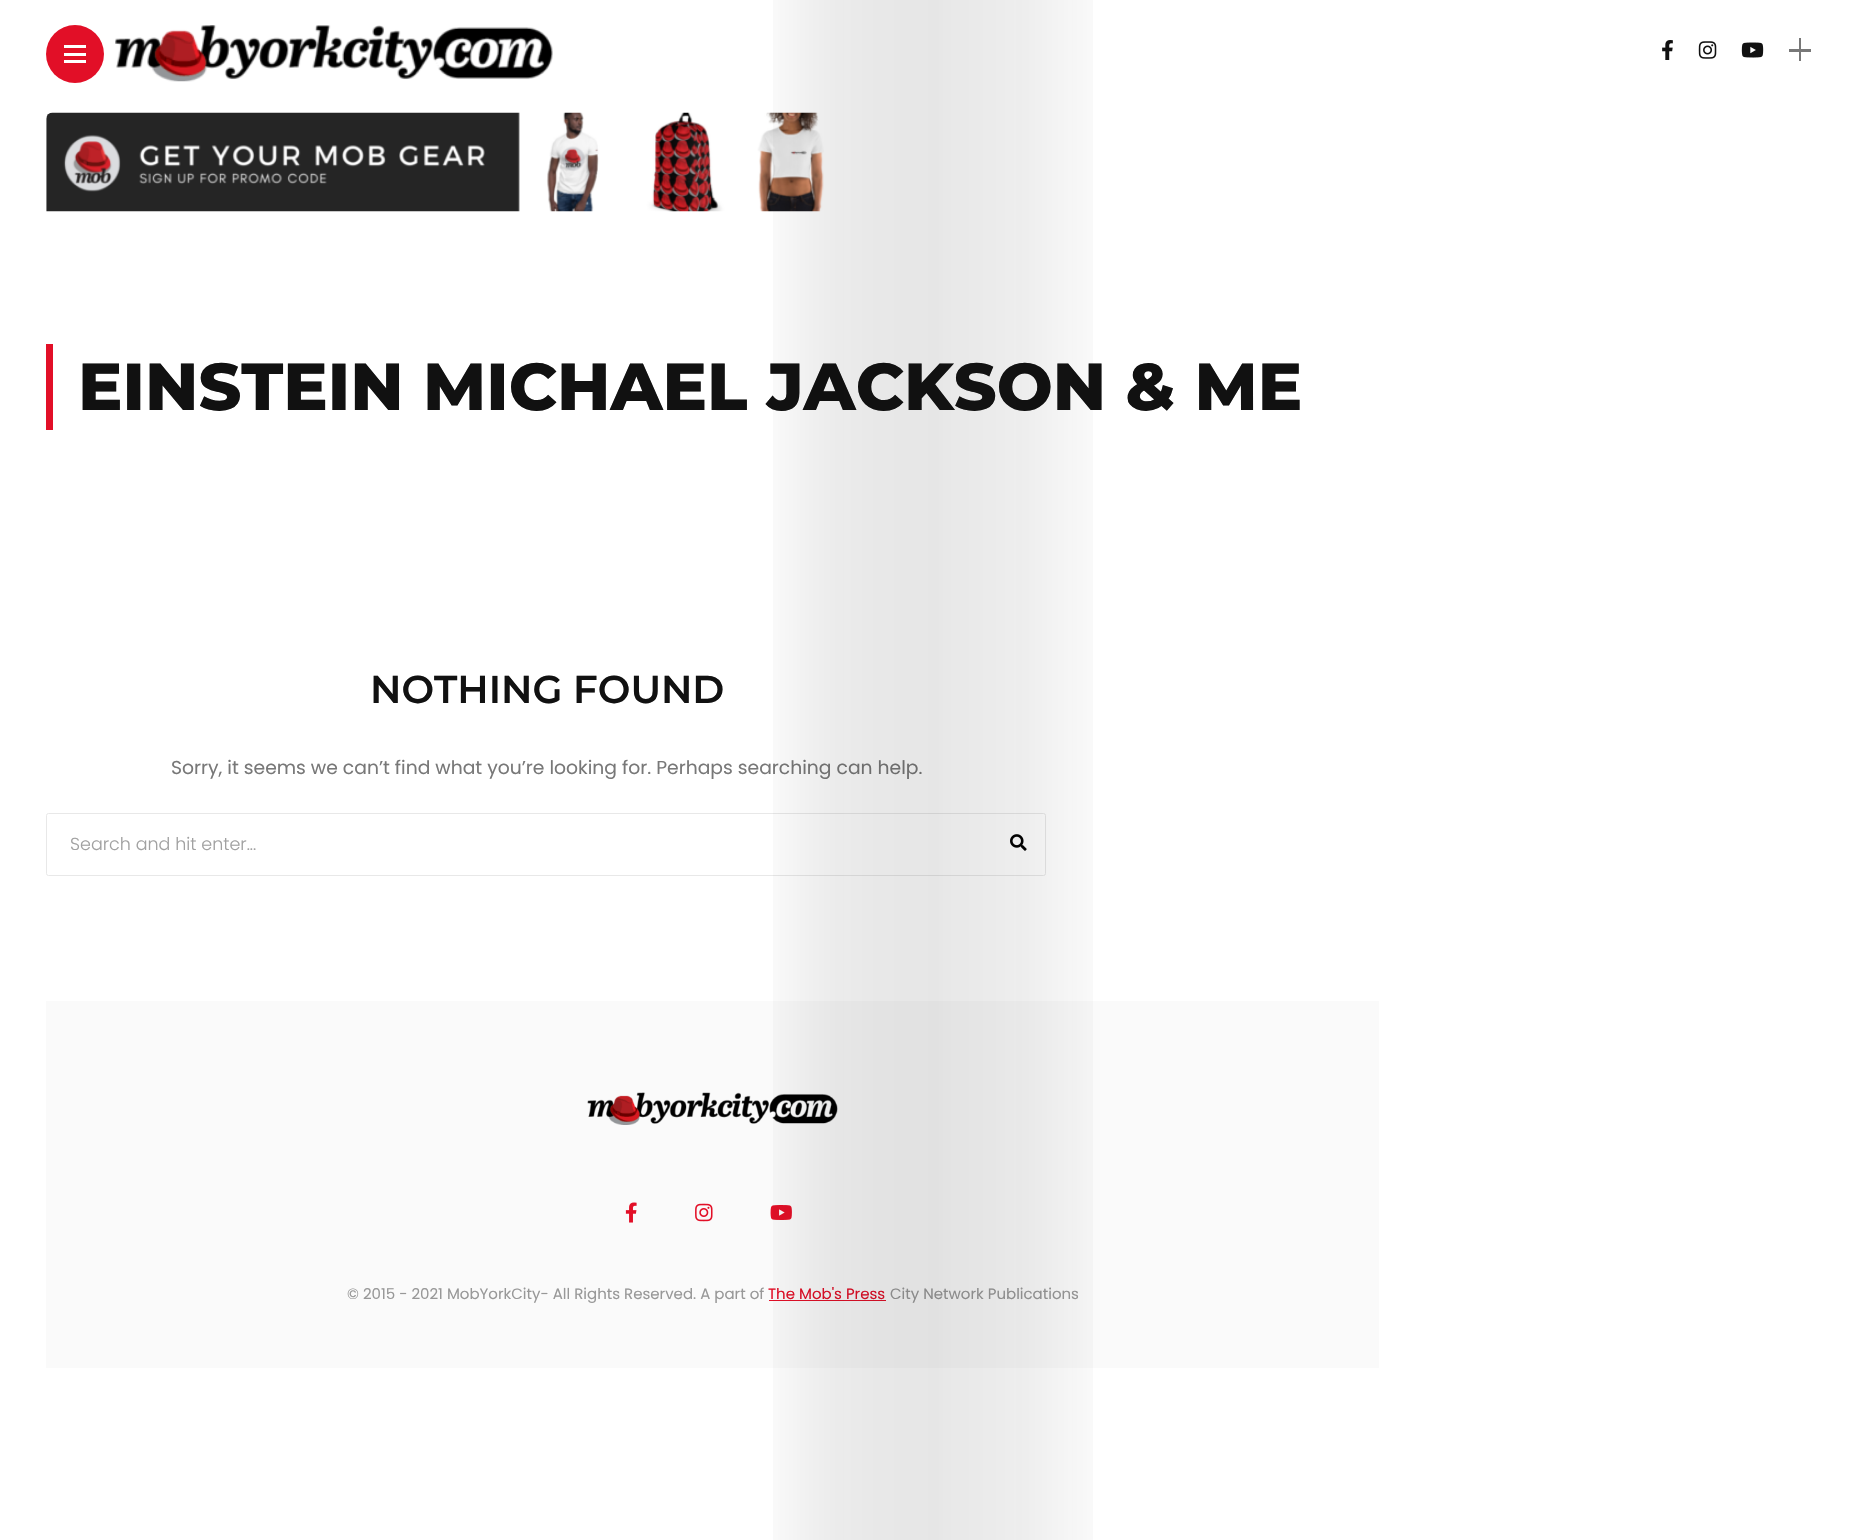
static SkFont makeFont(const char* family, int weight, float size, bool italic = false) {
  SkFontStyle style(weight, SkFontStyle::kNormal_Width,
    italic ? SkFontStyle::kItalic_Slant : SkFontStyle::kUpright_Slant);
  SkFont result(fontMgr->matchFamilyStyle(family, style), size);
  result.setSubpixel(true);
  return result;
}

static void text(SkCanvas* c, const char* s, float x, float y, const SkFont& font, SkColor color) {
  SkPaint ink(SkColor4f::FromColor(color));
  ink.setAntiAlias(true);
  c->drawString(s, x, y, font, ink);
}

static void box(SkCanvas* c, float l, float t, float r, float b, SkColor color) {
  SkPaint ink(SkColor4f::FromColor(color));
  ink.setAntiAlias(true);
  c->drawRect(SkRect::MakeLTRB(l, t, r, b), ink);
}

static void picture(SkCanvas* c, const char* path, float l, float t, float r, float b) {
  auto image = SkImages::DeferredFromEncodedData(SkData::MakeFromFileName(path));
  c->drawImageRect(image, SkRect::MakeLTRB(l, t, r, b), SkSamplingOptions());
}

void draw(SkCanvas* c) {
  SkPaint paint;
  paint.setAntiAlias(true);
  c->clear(0xffffffff);
  paint.setColor(0xffe20f27);
  c->drawCircle(75, 54, 29, paint);
  box(c, 64, 45, 86, 48, 0xffffffff);
  box(c, 64, 53, 86, 56, 0xffffffff);
  box(c, 64, 60, 86, 63, 0xffffffff);
  picture(c, "img_01.png", 115, 25, 553, 82);
  picture(c, "img_02.png", 1662, 40, 1673, 60);
  picture(c, "img_03.png", 1698, 41, 1717, 59);
  picture(c, "img_04.png", 1741, 42, 1764, 58);
  box(c, 1789, 49, 1811, 52, 0xff787878);
  box(c, 1799, 38, 1801, 61, 0xff787878);
  picture(c, "img_06.png", 46, 112, 824, 212);
  SkFont face1 = makeFont("Montserrat", 800, 66.25f);
  text(c, "EINSTEIN MICHAEL JACKSON & ME", 78, 410, face1, 0xff111111);
  SkFont face2 = makeFont("Poppins", 400, 18.75f);
  text(c, "Sorry, it seems we can’t find what you’re looking for. Perhaps searching can help.", 171, 774, face2, 0xff787878);
  paint.setStyle(SkPaint::kStroke_Style);
  paint.setStrokeWidth(1);
  paint.setColor(0xffe8e8e8);
  c->drawRoundRect(SkRect::MakeLTRB(46.5f, 813.5f, 1045.5f, 875.5f), 2, 2, paint);
  picture(c, "img_07.png", 1010, 834, 1027, 851);
  box(c, 46, 1001, 1379, 1368, 0xfffafafa);
  picture(c, "img_08.png", 587, 1092, 838, 1125);
  picture(c, "img_11.png", 770, 1205, 792, 1220);
  SkFont face3 = makeFont("Poppins", 400, 15);
  text(c, "The Mob's Press", 768, 1299, face3, 0xffe20f27);
  box(c, 769, 1300, 886, 1301, 0xffe20f27);
  text(c, "City Network Publications", 890, 1299, face3, 0xff989898);
  picture(c, "img_05.png", 773, 0, 1093, 1540);
  box(c, 46, 344, 53, 430, 0xffe20f27);
  SkFont face4 = makeFont("Montserrat", 600, 38.75f);
  text(c, "NOTHING FOUND", 370, 703, face4, 0xff111111);
  SkFont face5 = makeFont("Poppins", 300, 17.5f);
  text(c, "Search and hit enter...", 70, 850, face5, 0xffa1a1a1);
  picture(c, "img_09.png", 625, 1202, 637, 1223);
  picture(c, "img_10.png", 695, 1203, 713, 1222);
  text(c, "© 2015 - 2021 MobYorkCity- All Rights Reserved. A part of", 347, 1299, face3, 0xff989898);
}
